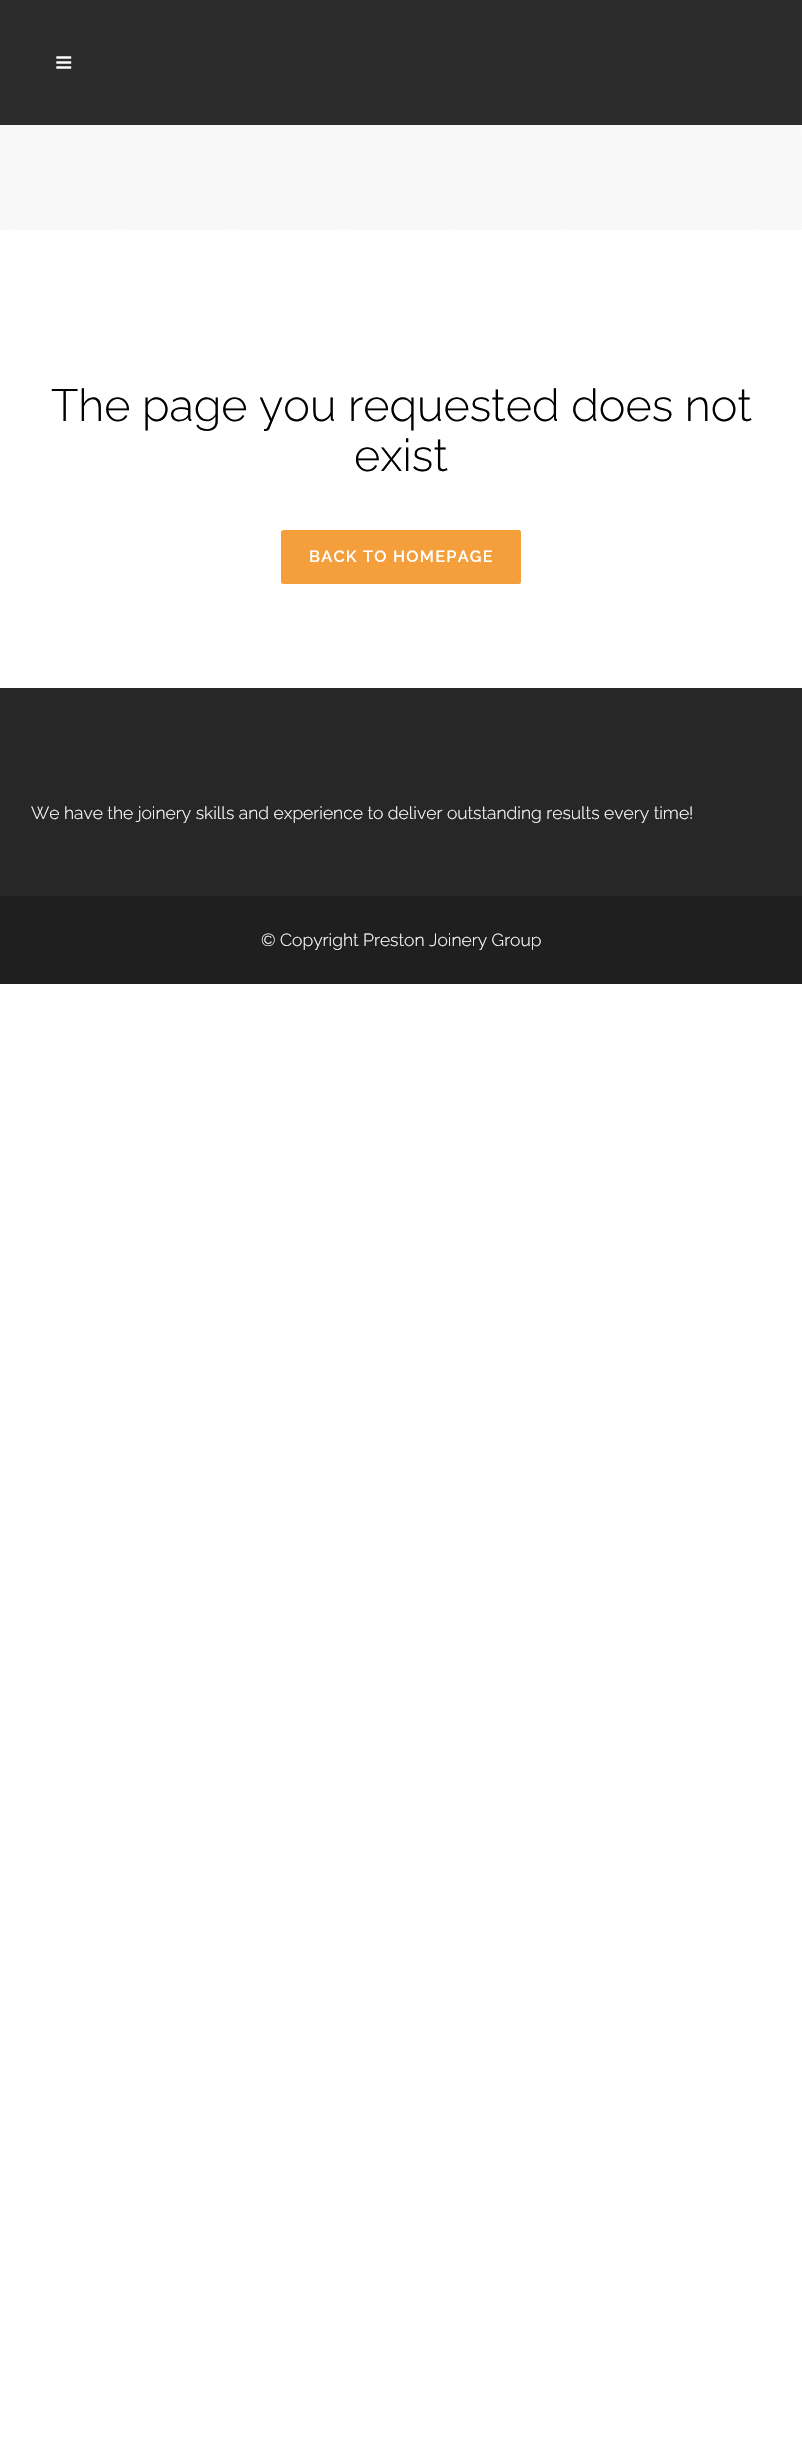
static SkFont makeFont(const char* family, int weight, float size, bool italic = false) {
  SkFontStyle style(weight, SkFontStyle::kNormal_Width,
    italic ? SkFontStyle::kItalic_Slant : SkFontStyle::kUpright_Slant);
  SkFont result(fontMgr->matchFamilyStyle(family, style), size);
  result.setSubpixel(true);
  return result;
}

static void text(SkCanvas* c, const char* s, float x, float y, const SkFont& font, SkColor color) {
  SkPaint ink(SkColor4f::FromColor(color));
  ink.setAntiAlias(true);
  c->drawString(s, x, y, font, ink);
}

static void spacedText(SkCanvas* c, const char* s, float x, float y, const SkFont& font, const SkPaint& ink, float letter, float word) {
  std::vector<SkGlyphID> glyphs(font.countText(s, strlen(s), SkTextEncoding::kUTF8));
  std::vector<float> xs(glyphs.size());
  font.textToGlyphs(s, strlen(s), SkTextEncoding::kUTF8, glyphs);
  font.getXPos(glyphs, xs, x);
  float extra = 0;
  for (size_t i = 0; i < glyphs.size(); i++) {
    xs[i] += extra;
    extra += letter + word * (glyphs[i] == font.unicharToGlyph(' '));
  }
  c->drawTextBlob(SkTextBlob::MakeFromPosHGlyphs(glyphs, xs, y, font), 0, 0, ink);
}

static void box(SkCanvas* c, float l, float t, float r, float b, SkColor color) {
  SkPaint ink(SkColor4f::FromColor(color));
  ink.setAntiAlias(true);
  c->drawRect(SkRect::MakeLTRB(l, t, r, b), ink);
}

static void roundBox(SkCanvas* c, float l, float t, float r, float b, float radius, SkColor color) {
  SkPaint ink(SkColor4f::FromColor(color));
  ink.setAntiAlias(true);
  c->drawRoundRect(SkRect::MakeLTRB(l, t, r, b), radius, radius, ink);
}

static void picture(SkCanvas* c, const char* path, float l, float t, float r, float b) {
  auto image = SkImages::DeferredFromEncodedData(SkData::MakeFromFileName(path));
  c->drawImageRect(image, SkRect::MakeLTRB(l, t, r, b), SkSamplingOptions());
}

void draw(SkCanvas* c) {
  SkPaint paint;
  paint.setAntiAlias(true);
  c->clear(0xffffffff);
  box(c, 0, 0, 802, 125, 0xff2c2c2c);
  picture(c, "img_01.png", 56, 56, 72, 69);
  picture(c, "img_02.png", 0, 125, 802, 230);
  SkFont face1 = makeFont("Raleway", 300, 45);
  text(c, "The page you requested does not", 51, 421, face1, 0xff000000);
  text(c, "exist", 354, 471, face1, 0xff000000);
  roundBox(c, 281, 530, 521, 584, 2.5f, 0xfff59f3c);
  SkFont face2 = makeFont("Raleway", 600, 16.25f);
  paint.setColor(0xffffffff);
  spacedText(c, "BACK TO HOMEPAGE", 309, 562, face2, paint, 1.25f, 0);
  box(c, 0, 688, 802, 896, 0xff272727);
  SkFont face3 = makeFont("Raleway", 300, 17.5f);
  text(c, "We have the joinery skills and experience to deliver outstanding results every time!", 31, 819, face3, 0xffffffff);
  box(c, 0, 896, 802, 984, 0xff1f1f1f);
  text(c, "© Copyright Preston Joinery Group", 261, 946, face3, 0xffffffff);
}
